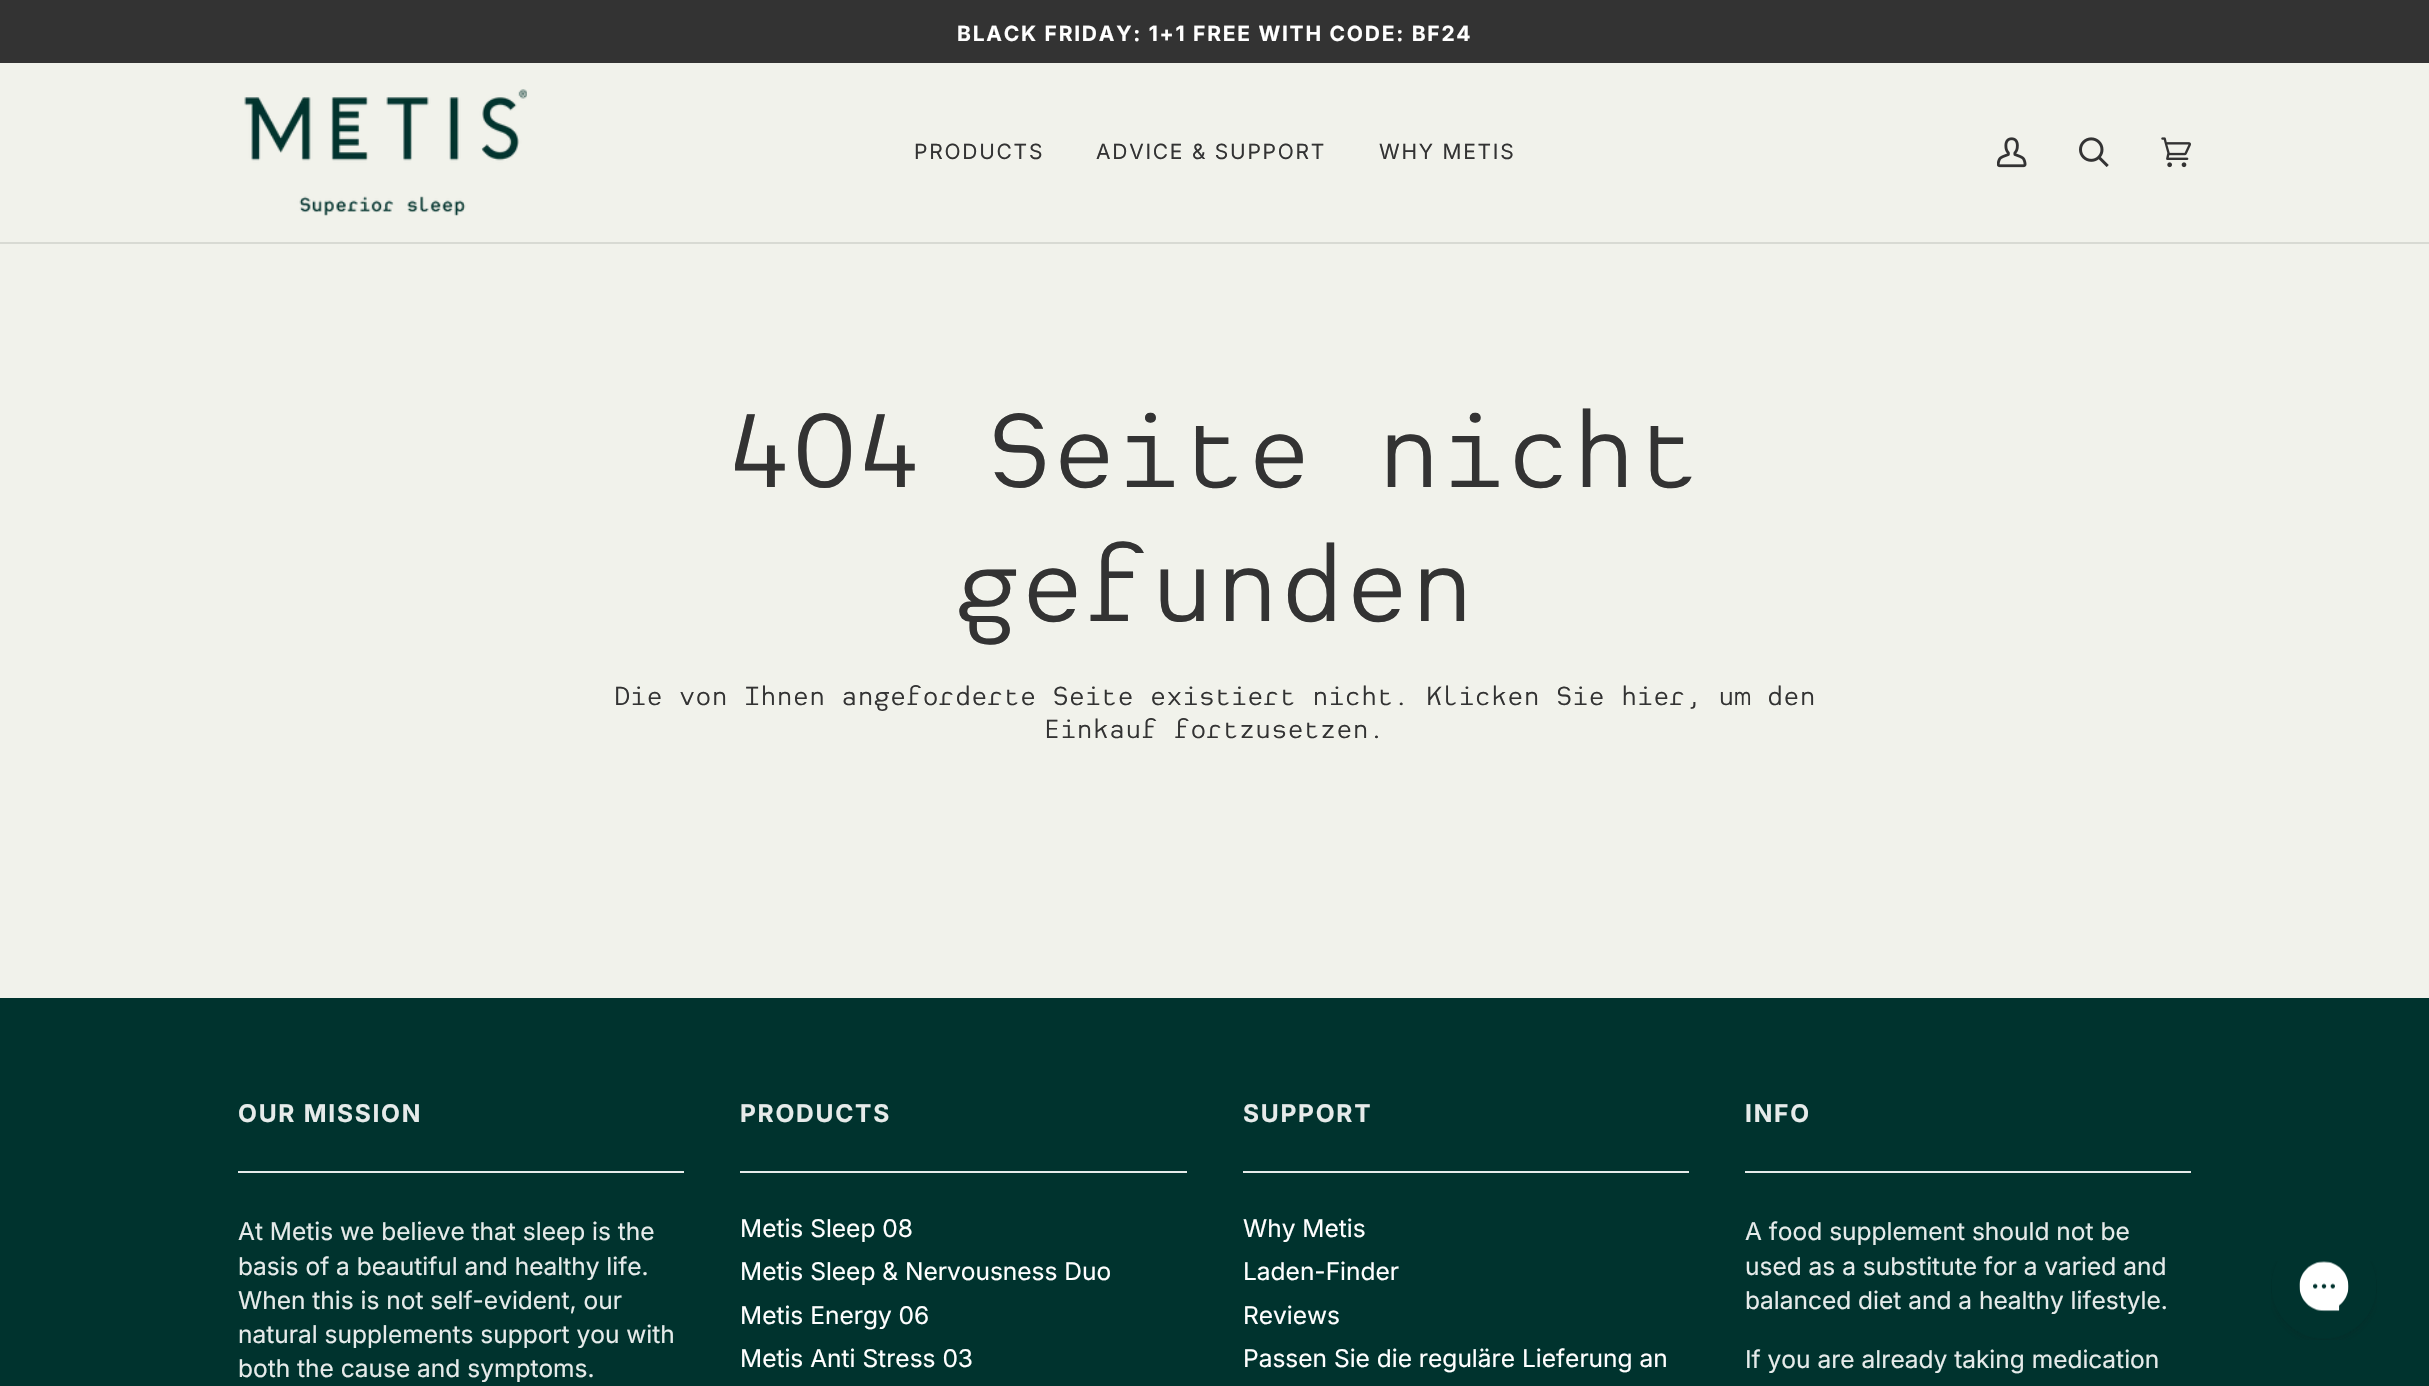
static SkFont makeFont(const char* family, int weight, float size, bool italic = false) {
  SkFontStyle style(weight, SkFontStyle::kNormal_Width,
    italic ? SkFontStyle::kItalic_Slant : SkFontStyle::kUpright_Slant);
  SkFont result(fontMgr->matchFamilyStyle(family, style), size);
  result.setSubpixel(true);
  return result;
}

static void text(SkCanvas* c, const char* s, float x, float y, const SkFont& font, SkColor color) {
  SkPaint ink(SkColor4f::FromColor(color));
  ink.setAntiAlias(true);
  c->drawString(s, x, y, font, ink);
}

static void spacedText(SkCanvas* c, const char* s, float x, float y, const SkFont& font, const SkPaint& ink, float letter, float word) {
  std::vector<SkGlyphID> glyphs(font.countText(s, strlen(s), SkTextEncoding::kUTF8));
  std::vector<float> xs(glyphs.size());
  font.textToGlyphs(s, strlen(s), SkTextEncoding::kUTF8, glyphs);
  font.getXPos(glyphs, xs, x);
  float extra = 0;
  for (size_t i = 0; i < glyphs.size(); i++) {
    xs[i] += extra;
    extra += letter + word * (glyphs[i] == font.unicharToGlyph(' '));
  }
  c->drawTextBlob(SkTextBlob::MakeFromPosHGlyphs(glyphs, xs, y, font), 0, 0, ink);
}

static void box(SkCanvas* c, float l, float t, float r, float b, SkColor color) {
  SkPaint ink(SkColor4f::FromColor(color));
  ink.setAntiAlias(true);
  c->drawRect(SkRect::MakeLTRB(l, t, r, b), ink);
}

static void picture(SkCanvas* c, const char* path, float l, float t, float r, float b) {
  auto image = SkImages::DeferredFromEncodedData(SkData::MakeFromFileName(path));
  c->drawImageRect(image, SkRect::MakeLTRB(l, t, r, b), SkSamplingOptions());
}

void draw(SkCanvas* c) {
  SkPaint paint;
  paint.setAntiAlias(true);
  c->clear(0xfff1f2eb);
  box(c, 0, 0, 2429, 63, 0xff333333);
  SkFont face1 = makeFont("Inter", 700, 21);
  paint.setColor(0xffffffff);
  spacedText(c, "BLACK FRIDAY: 1+1 FREE WITH CODE: BF24", 957, 41, face1, paint, 1.75f, 0);
  box(c, 0, 242, 2429, 244, 0xffd8dad3);
  picture(c, "img_01.png", 244, 89, 527, 216);
  SkFont face2 = makeFont("Inter", 400, 21);
  paint.setColor(0xff333333);
  spacedText(c, "PRODUCTS", 914, 159, face2, paint, 1.75f, 0);
  spacedText(c, "ADVICE & SUPPORT", 1096, 159, face2, paint, 1.75f, 0);
  spacedText(c, "WHY METIS", 1379, 159, face2, paint, 1.75f, 0);
  picture(c, "img_02.png", 1997, 137, 2027, 168);
  picture(c, "img_03.png", 2079, 137, 2109, 167);
  picture(c, "img_04.png", 2161, 137, 2191, 168);
  SkFont face3 = makeFont("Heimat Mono", 400, 112);
  text(c, "404 Seite nicht", 727, 487, face3, 0xff333333);
  text(c, "gefunden", 955, 621, face3, 0xff333333);
  SkFont face4 = makeFont("Heimat Mono", 400, 28);
  text(c, "Die von Ihnen angeforderte Seite existiert nicht. Klicken Sie hier, um den", 614, 705, face4, 0xff333333);
  text(c, "Einkauf fortzusetzen.", 1044, 738, face4, 0xff333333);
  box(c, 0, 998, 2429, 1386, 0xff00332e);
  box(c, 238, 1171, 684, 1173, 0xffe6ebea);
  SkFont face5 = makeFont("Inter", 700, 24.5f);
  paint.setColor(0xffe6ebea);
  spacedText(c, "OUR MISSION", 238, 1122, face5, paint, 1.75f, 0);
  SkFont face6 = makeFont("Inter", 400, 24.5f);
  text(c, "At Metis we believe that sleep is the", 238, 1240, face6, 0xffe6ebea);
  text(c, "basis of a beautiful and healthy life.", 238, 1275, face6, 0xffe6ebea);
  text(c, "When this is not self-evident, our", 238, 1309, face6, 0xffe6ebea);
  text(c, "natural supplements support you with", 238, 1343, face6, 0xffe6ebea);
  text(c, "both the cause and symptoms.", 238, 1377, face6, 0xffe6ebea);
  box(c, 740, 1171, 1187, 1173, 0xffe6ebea);
  spacedText(c, "PRODUCTS", 740, 1122, face5, paint, 1.75f, 0);
  text(c, "Metis Sleep 08", 740, 1237, face6, 0xffffffff);
  text(c, "Metis Sleep & Nervousness Duo", 740, 1280, face6, 0xffffffff);
  text(c, "Metis Energy 06", 740, 1324, face6, 0xffffffff);
  text(c, "Metis Anti Stress 03", 740, 1367, face6, 0xffffffff);
  box(c, 1243, 1171, 1689, 1173, 0xffe6ebea);
  spacedText(c, "SUPPORT", 1243, 1122, face5, paint, 1.75f, 0);
  text(c, "Why Metis", 1243, 1237, face6, 0xffffffff);
  text(c, "Laden-Finder", 1243, 1280, face6, 0xffffffff);
  text(c, "Reviews", 1243, 1324, face6, 0xffffffff);
  text(c, "Passen Sie die reguläre Lieferung an", 1243, 1367, face6, 0xffffffff);
  box(c, 1745, 1171, 2191, 1173, 0xffe6ebea);
  spacedText(c, "INFO", 1745, 1122, face5, paint, 1.75f, 0);
  text(c, "A food supplement should not be", 1745, 1240, face6, 0xffe6ebea);
  text(c, "used as a substitute for a varied and", 1745, 1275, face6, 0xffe6ebea);
  text(c, "balanced diet and a healthy lifestyle.", 1745, 1309, face6, 0xffe6ebea);
  text(c, "If you are already taking medication", 1745, 1368, face6, 0xffe6ebea);
  picture(c, "img_05.png", 2271, 1261, 2377, 1340);
}
